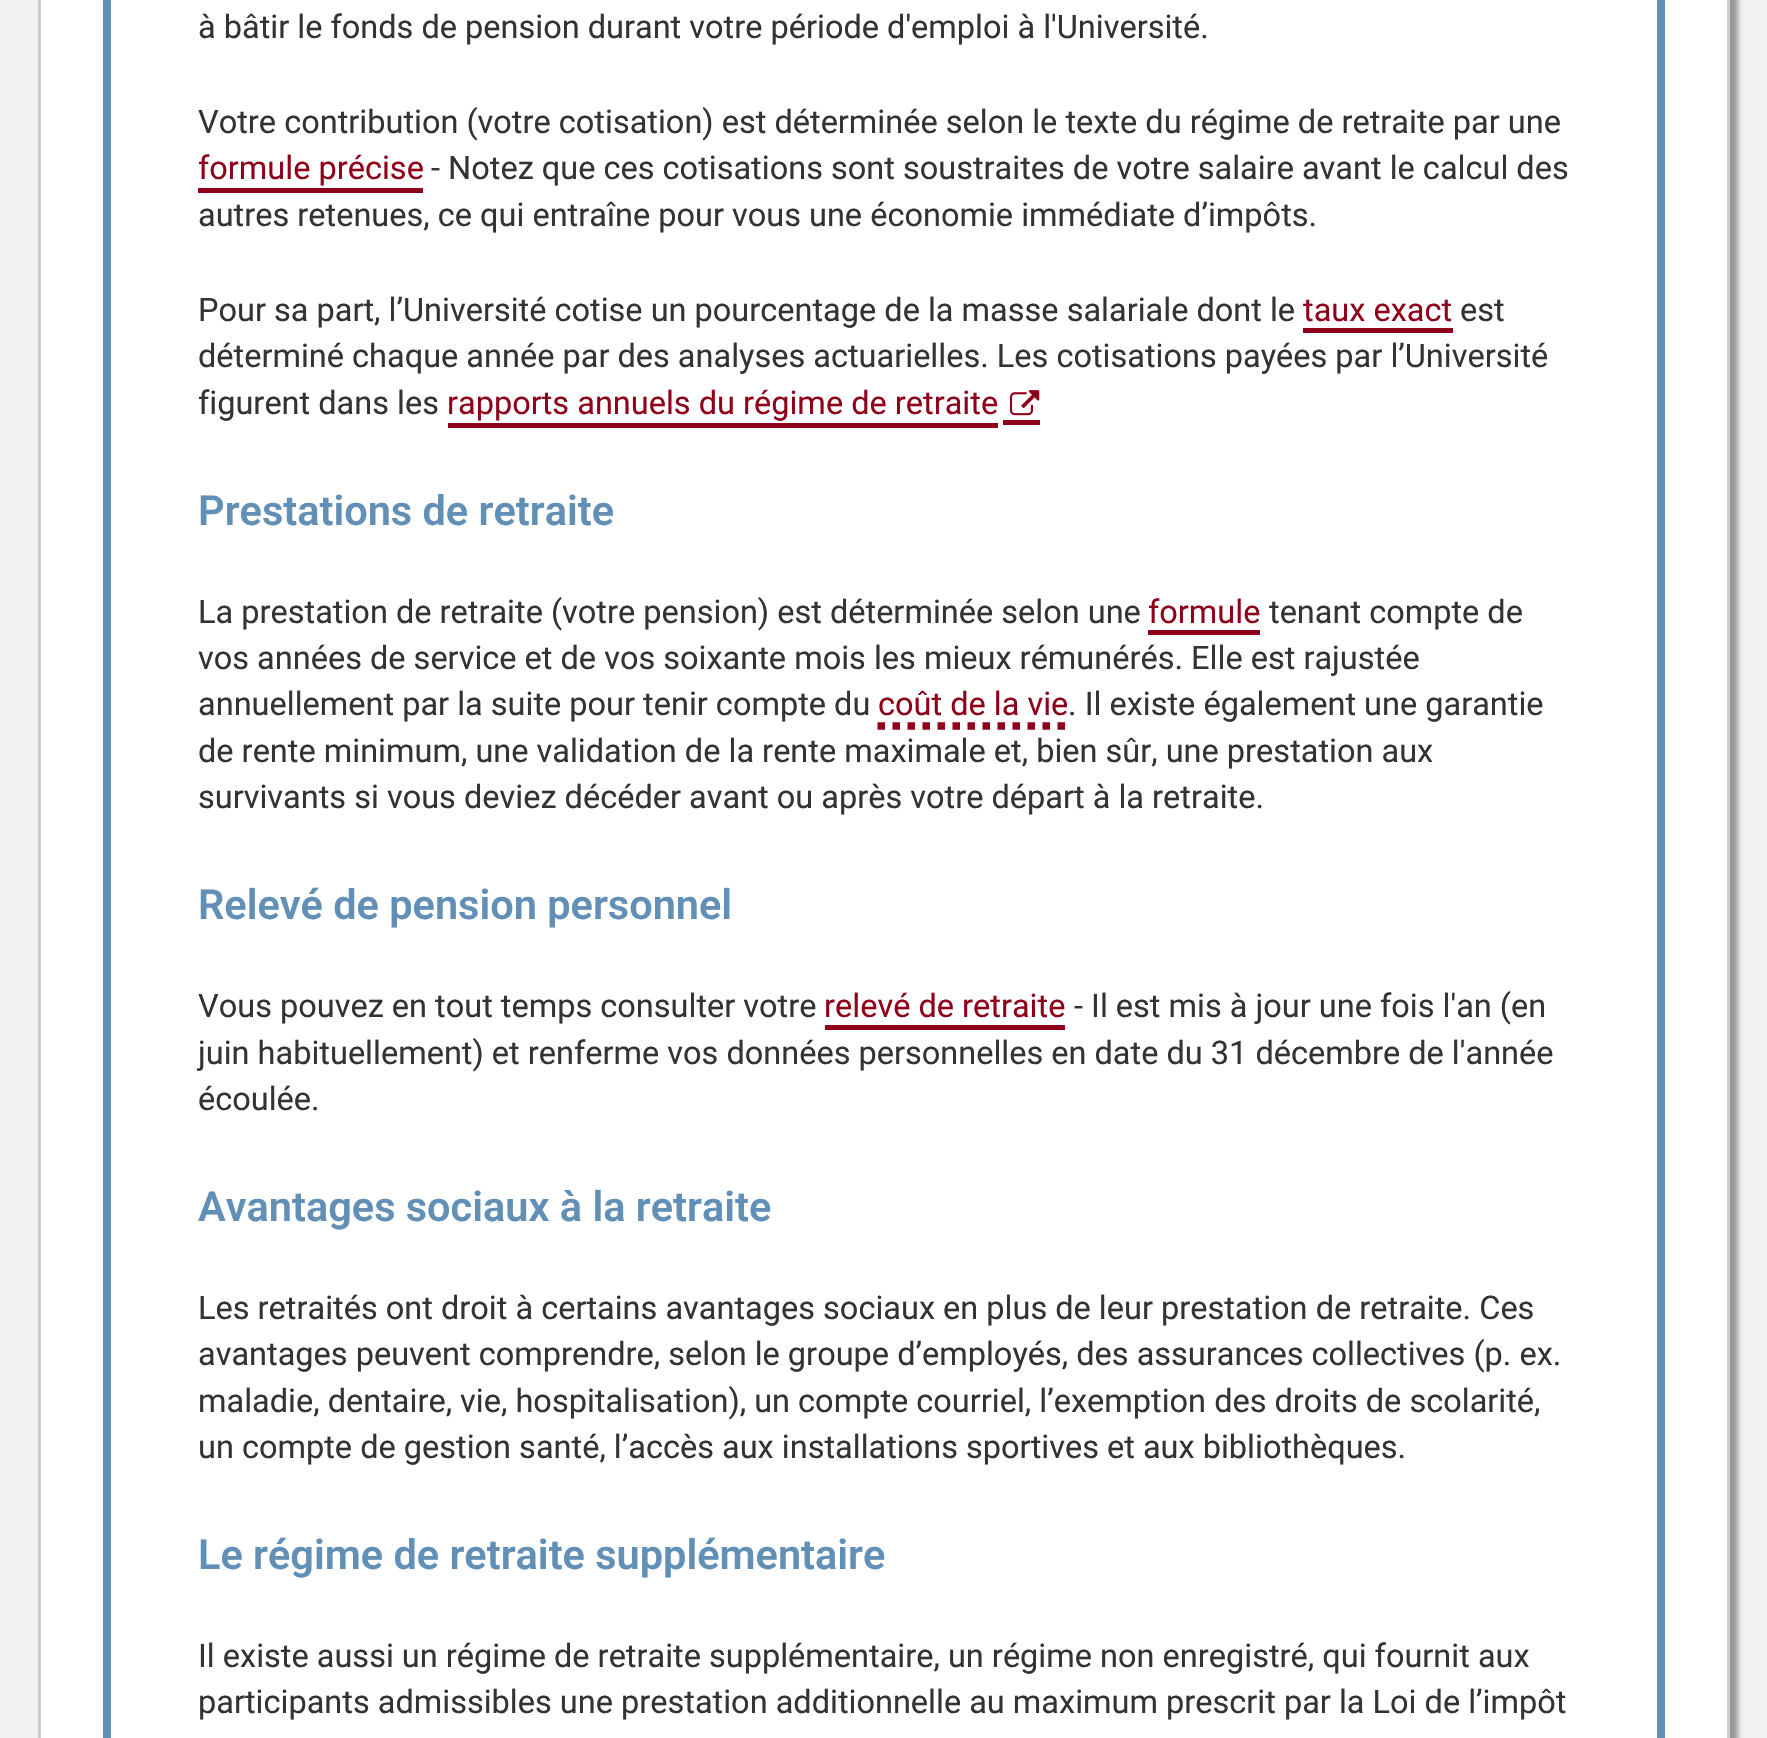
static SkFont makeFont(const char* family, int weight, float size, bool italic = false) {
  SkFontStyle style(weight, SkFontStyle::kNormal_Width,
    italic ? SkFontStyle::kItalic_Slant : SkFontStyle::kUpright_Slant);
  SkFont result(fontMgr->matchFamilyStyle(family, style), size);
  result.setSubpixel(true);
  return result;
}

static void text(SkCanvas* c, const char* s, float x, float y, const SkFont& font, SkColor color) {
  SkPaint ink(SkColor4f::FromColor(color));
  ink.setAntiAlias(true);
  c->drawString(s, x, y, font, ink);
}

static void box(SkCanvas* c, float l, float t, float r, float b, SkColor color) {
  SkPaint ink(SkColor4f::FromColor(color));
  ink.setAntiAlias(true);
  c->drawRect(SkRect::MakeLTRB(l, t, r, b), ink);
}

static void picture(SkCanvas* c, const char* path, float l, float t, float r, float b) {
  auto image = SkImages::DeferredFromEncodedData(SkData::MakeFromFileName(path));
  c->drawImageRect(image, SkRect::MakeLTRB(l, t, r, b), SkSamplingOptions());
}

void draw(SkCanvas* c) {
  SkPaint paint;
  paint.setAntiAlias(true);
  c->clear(0xfff2f2f2);
  paint.setColor(0xff999999);
  paint.setMaskFilter(SkMaskFilter::MakeBlur(kNormal_SkBlurStyle, 2.5f));
  c->drawRoundRect(SkRect::MakeLTRB(45, -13, 1738, 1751), 5, 5, paint);
  paint.setMaskFilter(nullptr);
  paint.setColor(0xffffffff);
  c->drawRect(SkRect::MakeLTRB(39.5f, -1.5f, 1728.5f, 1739.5f), paint);
  paint.setStyle(SkPaint::kStroke_Style);
  paint.setStrokeWidth(3);
  paint.setColor(0xffcccccc);
  c->drawRect(SkRect::MakeLTRB(39.5f, -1.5f, 1728.5f, 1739.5f), paint);
  paint.setStrokeWidth(8);
  paint.setColor(0xff628fb6);
  c->drawRect(SkRect::MakeLTRB(107, -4, 1661, 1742), paint);
  SkFont face1 = makeFont("Roboto", 400, 32.5f);
  text(c, "à bâtir le fonds de pension durant votre période d'emploi à l'Université.", 198, 38, face1, 0xff333333);
  text(c, "Votre contribution (votre cotisation) est déterminée selon le texte du régime de retraite par une", 198, 133, face1, 0xff333333);
  text(c, "formule précise", 198, 179, face1, 0xff8f001a);
  box(c, 198, 188, 423, 193, 0xff8f001a);
  text(c, "- Notez que ces cotisations sont soustraites de votre salaire avant le calcul des", 431, 179, face1, 0xff333333);
  text(c, "autres retenues, ce qui entraîne pour vous une économie immédiate d’impôts.", 198, 226, face1, 0xff333333);
  text(c, "Pour sa part, l’Université cotise un pourcentage de la masse salariale dont le", 198, 321, face1, 0xff333333);
  text(c, "taux exact", 1303, 321, face1, 0xff8f001a);
  box(c, 1303, 328, 1453, 333, 0xff8f001a);
  text(c, "est", 1460, 321, face1, 0xff333333);
  text(c, "déterminé chaque année par des analyses actuarielles. Les cotisations payées par l’Université", 198, 367, face1, 0xff333333);
  text(c, "figurent dans les", 198, 414, face1, 0xff333333);
  text(c, "rapports annuels du régime de retraite", 447, 414, face1, 0xff8f001a);
  box(c, 448, 423, 998, 428, 0xff8f001a);
  box(c, 1003, 420, 1040, 425, 0xff8f001a);
  picture(c, "img_01.png", 1010, 390, 1040, 416);
  SkFont face2 = makeFont("Roboto", 600, 41.5f);
  text(c, "Prestations de retraite", 198, 525, face2, 0xff628fb6);
  text(c, "La prestation de retraite (votre pension) est déterminée selon une", 198, 623, face1, 0xff333333);
  text(c, "formule", 1148, 623, face1, 0xff8f001a);
  box(c, 1148, 630, 1260, 635, 0xff8f001a);
  text(c, "tenant compte de", 1269, 623, face1, 0xff333333);
  text(c, "vos années de service et de vos soixante mois les mieux rémunérés. Elle est rajustée", 198, 669, face1, 0xff333333);
  text(c, "annuellement par la suite pour tenir compte du", 198, 715, face1, 0xff333333);
  text(c, "coût de la vie", 878, 715, face1, 0xff8f001a);
  paint.setStrokeWidth(7.5f);
  paint.setColor(0xff8f001a);
  paint.setPathEffect(SkDashPathEffect::Make({{7.5f, 7.5f}}, 0));
  c->drawPath(SkPathBuilder().moveTo(877.5f, 726).lineTo(1067.5f, 726).detach(), paint);
  paint.setPathEffect(nullptr);
  text(c, ". Il existe également une garantie", 1068, 715, face1, 0xff333333);
  text(c, "de rente minimum, une validation de la rente maximale et, bien sûr, une prestation aux", 198, 762, face1, 0xff333333);
  text(c, "survivants si vous deviez décéder avant ou après votre départ à la retraite.", 198, 808, face1, 0xff333333);
  text(c, "Relevé de pension personnel", 198, 919, face2, 0xff628fb6);
  text(c, "Vous pouvez en tout temps consulter votre", 198, 1017, face1, 0xff333333);
  text(c, "relevé de retraite", 824, 1017, face1, 0xff8f001a);
  box(c, 825, 1025, 1065, 1030, 0xff8f001a);
  text(c, "- Il est mis à jour une fois l'an (en", 1074, 1017, face1, 0xff333333);
  text(c, "juin habituellement) et renferme vos données personnelles en date du 31 décembre de l'année", 198, 1064, face1, 0xff333333);
  text(c, "écoulée.", 198, 1110, face1, 0xff333333);
  text(c, "Avantages sociaux à la retraite", 198, 1221, face2, 0xff628fb6);
  text(c, "Les retraités ont droit à certains avantages sociaux en plus de leur prestation de retraite. Ces", 198, 1319, face1, 0xff333333);
  text(c, "avantages peuvent comprendre, selon le groupe d’employés, des assurances collectives (p. ex.", 198, 1365, face1, 0xff333333);
  text(c, "maladie, dentaire, vie, hospitalisation), un compte courriel, l’exemption des droits de scolarité,", 198, 1412, face1, 0xff333333);
  text(c, "un compte de gestion santé, l’accès aux installations sportives et aux bibliothèques.", 198, 1458, face1, 0xff333333);
  text(c, "Le régime de retraite supplémentaire", 198, 1569, face2, 0xff628fb6);
  text(c, "Il existe aussi un régime de retraite supplémentaire, un régime non enregistré, qui fournit aux", 198, 1667, face1, 0xff333333);
  text(c, "participants admissibles une prestation additionnelle au maximum prescrit par la Loi de l’impôt", 198, 1713, face1, 0xff333333);
}
